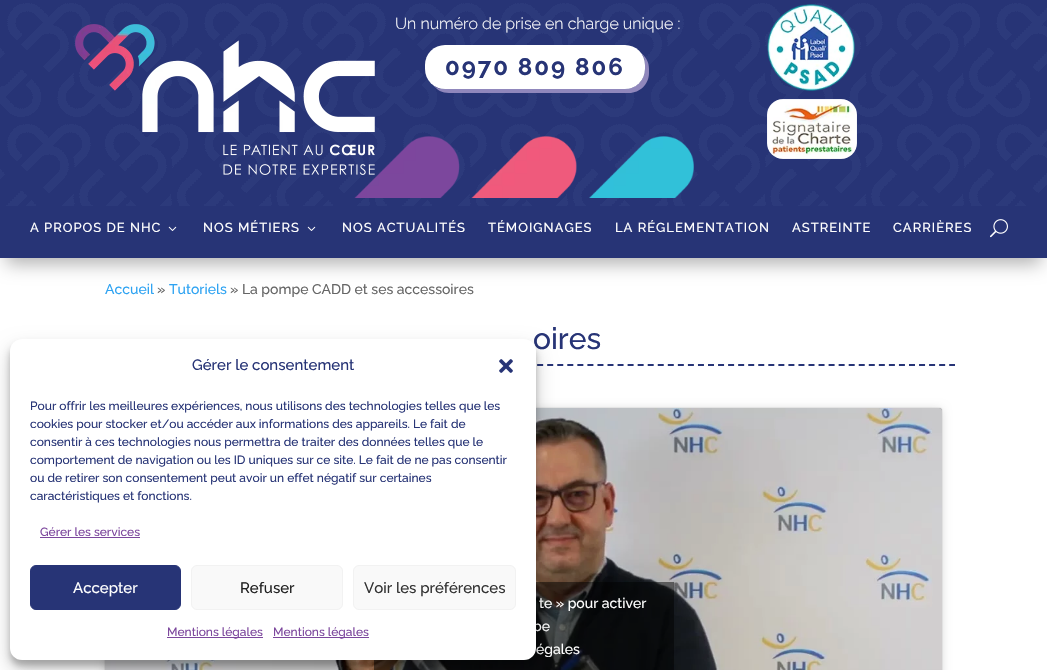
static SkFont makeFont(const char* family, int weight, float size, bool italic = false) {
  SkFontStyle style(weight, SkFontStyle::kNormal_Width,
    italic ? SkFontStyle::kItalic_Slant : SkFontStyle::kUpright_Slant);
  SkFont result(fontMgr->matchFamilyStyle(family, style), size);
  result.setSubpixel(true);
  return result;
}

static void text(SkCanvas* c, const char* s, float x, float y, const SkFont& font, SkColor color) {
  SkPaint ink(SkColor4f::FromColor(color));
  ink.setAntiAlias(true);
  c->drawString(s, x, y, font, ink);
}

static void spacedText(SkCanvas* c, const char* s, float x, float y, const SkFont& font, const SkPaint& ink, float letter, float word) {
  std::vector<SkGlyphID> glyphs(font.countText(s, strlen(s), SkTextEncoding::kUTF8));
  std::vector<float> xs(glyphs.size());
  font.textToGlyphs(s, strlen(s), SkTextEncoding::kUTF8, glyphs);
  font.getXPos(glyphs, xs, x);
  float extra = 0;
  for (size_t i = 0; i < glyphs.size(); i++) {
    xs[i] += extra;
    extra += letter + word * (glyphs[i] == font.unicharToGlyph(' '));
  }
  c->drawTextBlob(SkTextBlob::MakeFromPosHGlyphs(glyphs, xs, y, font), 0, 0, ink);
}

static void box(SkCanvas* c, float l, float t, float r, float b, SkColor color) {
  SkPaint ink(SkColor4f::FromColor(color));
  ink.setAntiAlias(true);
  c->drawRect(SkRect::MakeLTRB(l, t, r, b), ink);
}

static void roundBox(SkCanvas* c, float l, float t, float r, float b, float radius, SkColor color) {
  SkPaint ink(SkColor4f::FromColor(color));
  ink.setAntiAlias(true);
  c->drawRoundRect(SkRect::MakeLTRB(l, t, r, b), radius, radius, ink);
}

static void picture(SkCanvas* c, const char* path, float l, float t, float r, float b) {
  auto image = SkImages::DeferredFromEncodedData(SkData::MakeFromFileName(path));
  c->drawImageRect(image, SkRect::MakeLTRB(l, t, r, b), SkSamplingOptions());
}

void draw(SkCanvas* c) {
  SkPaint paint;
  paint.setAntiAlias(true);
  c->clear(0xffffffff);
  box(c, 0, 0, 1047, 206, 0xff273476);
  picture(c, "img_01.png", 0, 3, 1047, 206);
  picture(c, "img_05.png", 354, 136, 694, 198);
  picture(c, "img_02.png", 75, 24, 375, 175);
  SkFont face1 = makeFont("Raleway", 300, 16);
  text(c, "Un numéro de prise en charge unique :", 395, 29, face1, 0xffffffff);
  paint.setColor(0xff9087bc);
  c->drawPath(SkPathBuilder().moveTo(433, 85).cubicTo(437, 90, 442, 93, 449, 93).lineTo(629, 93).cubicTo(640, 93, 649, 84, 649, 73).lineTo(649, 69).cubicTo(649, 62, 646, 57, 641, 53).cubicTo(644, 56, 645, 60, 645, 65).lineTo(645, 69).cubicTo(645, 80, 636, 89, 625, 89).lineTo(445, 89).cubicTo(440, 89, 436, 88, 433, 85).close().detach(), paint);
  roundBox(c, 425, 45, 645, 89, 20, 0xffffffff);
  SkFont face2 = makeFont("Raleway", 700, 24);
  paint.setColor(0xff273476);
  spacedText(c, "0970 809 806", 445, 75, face2, paint, 2, 0);
  picture(c, "img_03.png", 767, 4, 855, 91);
  picture(c, "img_04.png", 767, 99, 857, 159);
  paint.setColor(0x4d000000);
  paint.setMaskFilter(SkMaskFilter::MakeBlur(kNormal_SkBlurStyle, 9));
  c->drawRect(SkRect::MakeLTRB(6, 224, 1041, 264), paint);
  paint.setMaskFilter(nullptr);
  box(c, 0, 206, 1047, 258, 0xff273476);
  SkFont face3 = makeFont("Raleway", 500, 13);
  paint.setColor(0xffffffff);
  spacedText(c, "A PROPOS DE NHC", 30, 232, face3, paint, 1, 0);
  picture(c, "img_06.png", 168, 226, 177, 231);
  spacedText(c, "NOS MÉTIERS", 203, 232, face3, paint, 1, 0);
  picture(c, "img_06.png", 307, 226, 316, 231);
  spacedText(c, "NOS ACTUALITÉS", 342, 232, face3, paint, 1, 0);
  spacedText(c, "TÉMOIGNAGES", 488, 232, face3, paint, 1, 0);
  spacedText(c, "LA RÉGLEMENTATION", 615, 232, face3, paint, 1, 0);
  spacedText(c, "ASTREINTE", 792, 232, face3, paint, 1, 0);
  spacedText(c, "CARRIÈRES", 893, 232, face3, paint, 1, 0);
  picture(c, "img_07.png", 990, 219, 1008, 238);
  SkFont face4 = makeFont("Raleway", 500, 14);
  text(c, "Accueil", 105, 294, face4, 0xff2ea3f2);
  text(c, "»", 157, 294, face4, 0xff666666);
  text(c, "Tutoriels", 169, 294, face4, 0xff2ea3f2);
  text(c, "» La pompe CADD et ses accessoires", 230, 294, face4, 0xff666666);
  paint.setStyle(SkPaint::kStroke_Style);
  paint.setStrokeWidth(2);
  paint.setColor(0xff273476);
  paint.setPathEffect(SkDashPathEffect::Make({{6, 4.05f}}, 0));
  c->drawPath(SkPathBuilder().moveTo(105, 365).lineTo(955, 365).detach(), paint);
  paint.setPathEffect(nullptr);
  SkFont face5 = makeFont("Raleway", 500, 30);
  text(c, "oires", 533, 349, face5, 0xff273476);
  paint.setStyle(SkPaint::kFill_Style);
  paint.setColor(0x26000000);
  paint.setMaskFilter(SkMaskFilter::MakeBlur(kNormal_SkBlurStyle, 5));
  c->drawRoundRect(SkRect::MakeLTRB(105, 409, 942, 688), 3, 3, paint);
  paint.setMaskFilter(nullptr);
  paint.setColor(0x80000000);
  paint.setMaskFilter(SkMaskFilter::MakeBlur(kNormal_SkBlurStyle, 0.5f));
  c->drawRoundRect(SkRect::MakeLTRB(105, 408, 942, 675), 3, 3, paint);
  paint.setMaskFilter(nullptr);
  picture(c, "img_08.png", 105, 408, 942, 670);
  box(c, 374, 582, 674, 670, 0x80000000);
  text(c, "te » pour activer", 539, 608, face4, 0xffffffff);
  text(c, "be", 533, 631, face4, 0xffffffff);
  text(c, "égales", 536, 654, face4, 0xffffffff);
  paint.setColor(0x3b000000);
  paint.setMaskFilter(SkMaskFilter::MakeBlur(kNormal_SkBlurStyle, 3));
  c->drawRoundRect(SkRect::MakeLTRB(10, 345, 536, 666), 12, 12, paint);
  paint.setMaskFilter(nullptr);
  paint.setColor(0x30000000);
  paint.setMaskFilter(SkMaskFilter::MakeBlur(kNormal_SkBlurStyle, 10));
  c->drawRoundRect(SkRect::MakeLTRB(10, 349, 536, 670), 12, 12, paint);
  paint.setMaskFilter(nullptr);
  roundBox(c, 10, 339, 536, 660, 12, 0xffffffff);
  SkFont face6 = makeFont("Raleway", 500, 15);
  text(c, "Gérer le consentement", 192, 370, face6, 0xff273476);
  picture(c, "img_09.png", 499, 359, 513, 373);
  SkFont face7 = makeFont("Raleway", 500, 12);
  text(c, "Pour offrir les meilleures expériences, nous utilisons des technologies telles que les", 30, 410, face7, 0xff273476);
  text(c, "cookies pour stocker et/ou accéder aux informations des appareils. Le fait de", 30, 428, face7, 0xff273476);
  text(c, "consentir à ces technologies nous permettra de traiter des données telles que le", 30, 446, face7, 0xff273476);
  text(c, "comportement de navigation ou les ID uniques sur ce site. Le fait de ne pas consentir", 30, 464, face7, 0xff273476);
  text(c, "ou de retirer son consentement peut avoir un effet négatif sur certaines", 30, 482, face7, 0xff273476);
  text(c, "caractéristiques et fonctions.", 30, 500, face7, 0xff273476);
  text(c, "Gérer les services", 40, 536, face7, 0xff7c479d);
  box(c, 40, 537, 140, 538, 0xff7c479d);
  paint.setColor(0xff273476);
  c->drawRoundRect(SkRect::MakeLTRB(30.5f, 565.5f, 180.5f, 609.5f), 5.5f, 5.5f, paint);
  paint.setStyle(SkPaint::kStroke_Style);
  paint.setStrokeWidth(1);
  c->drawRoundRect(SkRect::MakeLTRB(30.5f, 565.5f, 180.5f, 609.5f), 5.5f, 5.5f, paint);
  text(c, "Accepter", 73, 593, face6, 0xffffffff);
  paint.setStyle(SkPaint::kFill_Style);
  paint.setColor(0xfff9f9f9);
  c->drawRoundRect(SkRect::MakeLTRB(191.5f, 565.5f, 342.5f, 609.5f), 5.5f, 5.5f, paint);
  paint.setStyle(SkPaint::kStroke_Style);
  paint.setColor(0xfff2f2f2);
  c->drawRoundRect(SkRect::MakeLTRB(191.5f, 565.5f, 342.5f, 609.5f), 5.5f, 5.5f, paint);
  text(c, "Refuser", 240, 593, face6, 0xff222222);
  paint.setStyle(SkPaint::kFill_Style);
  paint.setColor(0xfff9f9f9);
  c->drawRoundRect(SkRect::MakeLTRB(353.5f, 565.5f, 515.5f, 609.5f), 5.5f, 5.5f, paint);
  paint.setStyle(SkPaint::kStroke_Style);
  paint.setColor(0xfff2f2f2);
  c->drawRoundRect(SkRect::MakeLTRB(353.5f, 565.5f, 515.5f, 609.5f), 5.5f, 5.5f, paint);
  text(c, "Voir les préférences", 364, 593, face6, 0xff333333);
  box(c, 167, 637, 263, 638, 0xff7c479d);
  text(c, "Mentions légales", 167, 636, face7, 0xff7c479d);
  box(c, 273, 637, 369, 638, 0xff7c479d);
  text(c, "Mentions légales", 273, 636, face7, 0xff7c479d);
}
